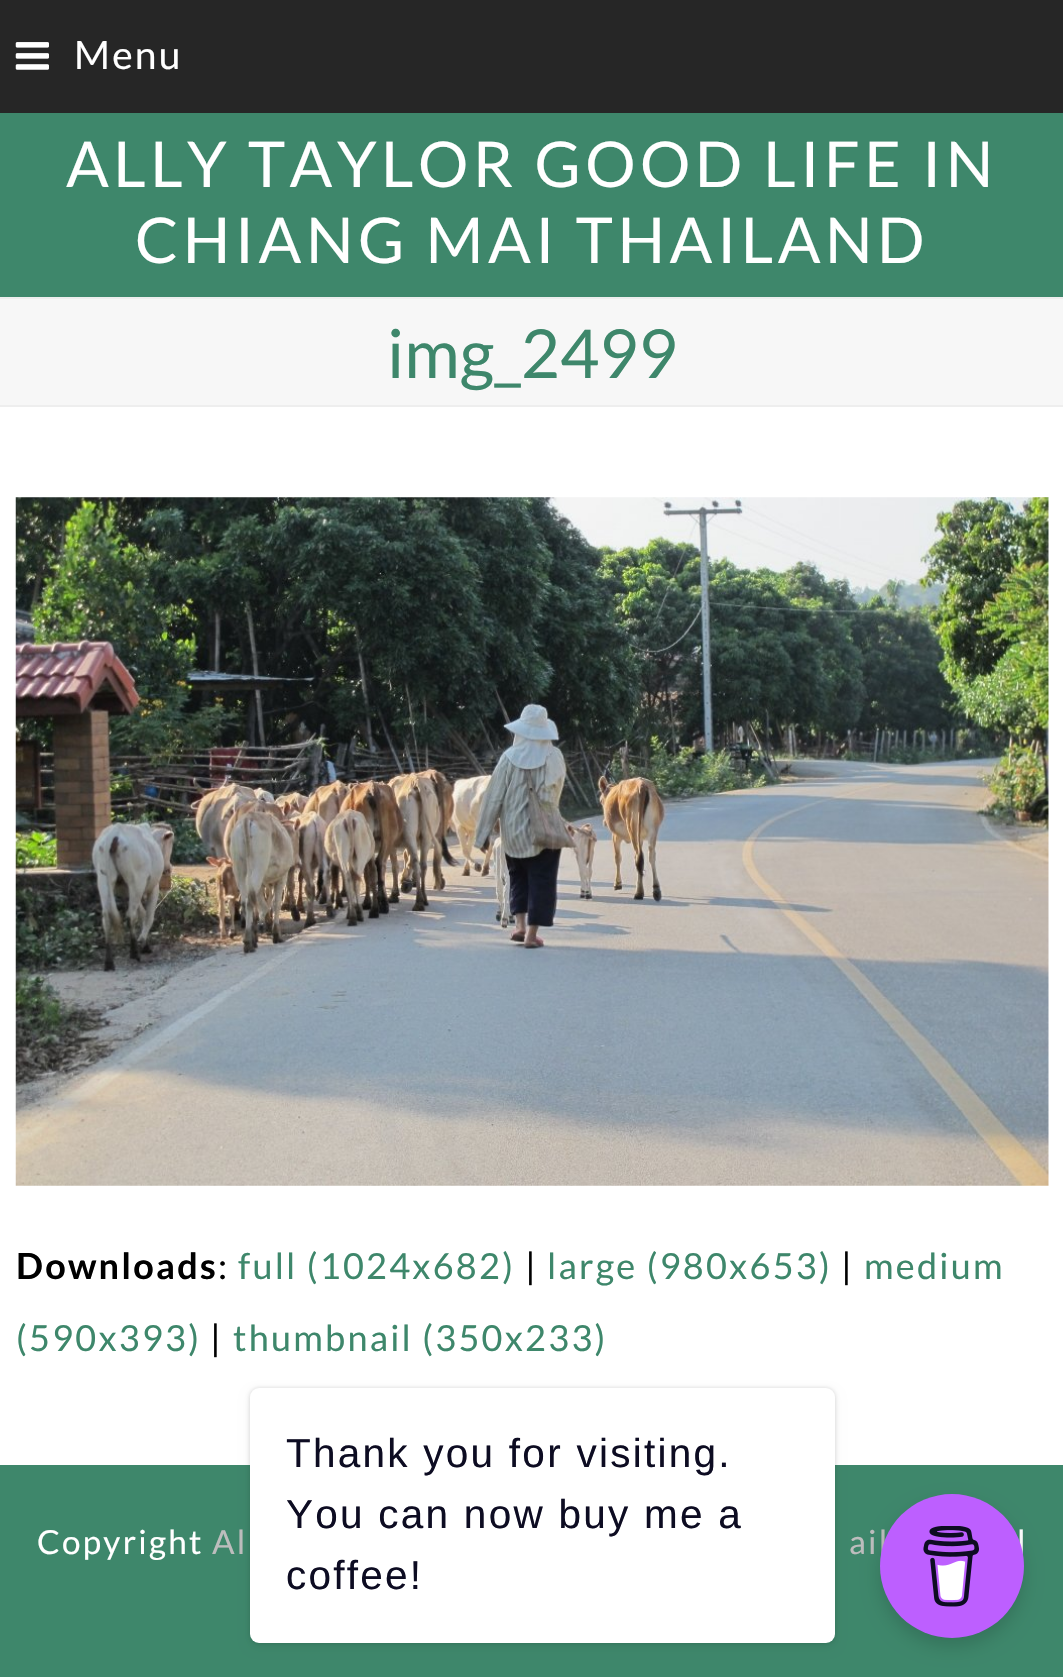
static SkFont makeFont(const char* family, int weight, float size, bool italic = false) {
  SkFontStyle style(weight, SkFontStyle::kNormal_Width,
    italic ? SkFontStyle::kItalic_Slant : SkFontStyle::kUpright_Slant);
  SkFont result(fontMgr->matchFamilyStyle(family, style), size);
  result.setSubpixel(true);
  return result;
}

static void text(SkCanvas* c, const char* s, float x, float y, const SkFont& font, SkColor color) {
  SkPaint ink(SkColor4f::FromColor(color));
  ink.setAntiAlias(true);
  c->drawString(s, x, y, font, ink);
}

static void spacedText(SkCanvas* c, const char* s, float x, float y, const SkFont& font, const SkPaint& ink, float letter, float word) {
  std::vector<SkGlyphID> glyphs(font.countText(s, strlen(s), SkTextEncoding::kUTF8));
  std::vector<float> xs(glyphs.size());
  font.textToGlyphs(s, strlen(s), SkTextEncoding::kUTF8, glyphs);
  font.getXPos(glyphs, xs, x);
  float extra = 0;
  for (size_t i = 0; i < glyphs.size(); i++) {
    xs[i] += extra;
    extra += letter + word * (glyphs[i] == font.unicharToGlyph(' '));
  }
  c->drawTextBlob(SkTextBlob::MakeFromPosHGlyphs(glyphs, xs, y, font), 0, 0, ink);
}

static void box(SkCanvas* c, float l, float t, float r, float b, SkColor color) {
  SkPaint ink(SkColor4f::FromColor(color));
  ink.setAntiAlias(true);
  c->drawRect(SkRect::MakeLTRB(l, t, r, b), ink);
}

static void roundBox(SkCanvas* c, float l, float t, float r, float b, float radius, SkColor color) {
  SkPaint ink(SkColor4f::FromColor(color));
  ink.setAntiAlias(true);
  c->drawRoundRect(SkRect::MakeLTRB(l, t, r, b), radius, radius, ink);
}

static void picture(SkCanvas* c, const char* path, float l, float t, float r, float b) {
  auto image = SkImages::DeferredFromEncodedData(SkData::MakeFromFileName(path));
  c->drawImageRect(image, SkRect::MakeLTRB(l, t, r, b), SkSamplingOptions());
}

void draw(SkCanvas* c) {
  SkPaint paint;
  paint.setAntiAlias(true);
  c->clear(0xffffffff);
  box(c, 0, 0, 1063, 113, 0xff262626);
  picture(c, "img_01.png", 15, 42, 49, 70);
  SkFont face1 = makeFont("Lato", 400, 39);
  paint.setColor(0xffffffff);
  spacedText(c, "Menu", 74, 69, face1, paint, 2.25f, 0);
  box(c, 0, 113, 1063, 297, 0xff3e876b);
  SkFont face2 = makeFont("Lato", 400, 63);
  spacedText(c, "ALLY TAYLOR GOOD LIFE IN", 66, 187, face2, paint, 4.5f, 0);
  spacedText(c, "CHIANG MAI THAILAND", 135, 263, face2, paint, 4.5f, 0);
  box(c, 0, 299, 1063, 405, 0xfff7f7f7);
  box(c, 0, 297, 1063, 299, 0xffeeeeee);
  box(c, 0, 405, 1063, 407, 0xffeeeeee);
  SkFont face3 = makeFont("Lato", 400, 67.5f);
  text(c, "img_2499", 387, 378, face3, 0xff3e876b);
  picture(c, "img_02.png", 15, 497, 1049, 1186);
  SkFont face4 = makeFont("Lato", 700, 36);
  paint.setColor(0xff000000);
  spacedText(c, "Downloads", 16, 1279, face4, paint, 2.25f, 0);
  SkFont face5 = makeFont("Lato", 400, 36);
  spacedText(c, ":", 218, 1279, face5, paint, 2.25f, 0);
  paint.setColor(0xff3e876b);
  spacedText(c, "full (1024x682)", 238, 1279, face5, paint, 2.25f, 0);
  paint.setColor(0xff000000);
  spacedText(c, "|", 525, 1279, face5, paint, 2.25f, 0);
  paint.setColor(0xff3e876b);
  spacedText(c, "large (980x653)", 547, 1279, face5, paint, 2.25f, 0);
  paint.setColor(0xff000000);
  spacedText(c, "|", 841, 1279, face5, paint, 2.25f, 0);
  paint.setColor(0xff3e876b);
  spacedText(c, "medium", 864, 1279, face5, paint, 2.25f, 0);
  spacedText(c, "(590x393)", 16, 1351, face5, paint, 2.25f, 0);
  paint.setColor(0xff000000);
  spacedText(c, "|", 210, 1351, face5, paint, 2.25f, 0);
  paint.setColor(0xff3e876b);
  spacedText(c, "thumbnail (350x233)", 233, 1351, face5, paint, 2.25f, 0);
  box(c, 0, 1465, 1063, 1677, 0xff3e876b);
  SkFont face6 = makeFont("Lato", 400, 33.25f);
  paint.setColor(0xffffffff);
  spacedText(c, "Copyright", 37, 1554, face6, paint, 2.25f, 0);
  paint.setColor(0xffbdbdbd);
  spacedText(c, "Al", 212, 1554, face6, paint, 2.25f, 0);
  spacedText(c, "ail", 849, 1554, face6, paint, 2.25f, 0);
  paint.setColor(0xffffffff);
  spacedText(c, "l", 1017, 1554, face6, paint, 2.25f, 0);
  paint.setColor(0x26000000);
  paint.setMaskFilter(SkMaskFilter::MakeBlur(kNormal_SkBlurStyle, 2));
  c->drawRoundRect(SkRect::MakeLTRB(250, 1388, 835, 1643), 9, 9, paint);
  paint.setMaskFilter(nullptr);
  paint.setColor(0x0d000000);
  paint.setMaskFilter(SkMaskFilter::MakeBlur(kNormal_SkBlurStyle, 5.5f));
  c->drawRoundRect(SkRect::MakeLTRB(250, 1393, 835, 1647), 9, 9, paint);
  paint.setMaskFilter(nullptr);
  roundBox(c, 250, 1388, 835, 1643, 9, 0xffffffff);
  SkFont face7 = makeFont("Liberation Sans", 400, 40.5f);
  paint.setColor(0xff0d0c22);
  spacedText(c, "Thank you for visiting.", 286, 1467, face7, paint, 2.25f, 0);
  spacedText(c, "You can now buy me a", 286, 1528, face7, paint, 2.25f, 0);
  spacedText(c, "coffee!", 286, 1589, face7, paint, 2.25f, 0);
  paint.setColor(0x26000000);
  paint.setMaskFilter(SkMaskFilter::MakeBlur(kNormal_SkBlurStyle, 9));
  c->drawRoundRect(SkRect::MakeLTRB(880, 1503, 1024, 1647), 72, 72, paint);
  paint.setMaskFilter(nullptr);
  paint.setColor(0xffbd5fff);
  c->drawCircle(952, 1566, 72, paint);
  picture(c, "img_03.png", 923, 1526, 979, 1607);
}
